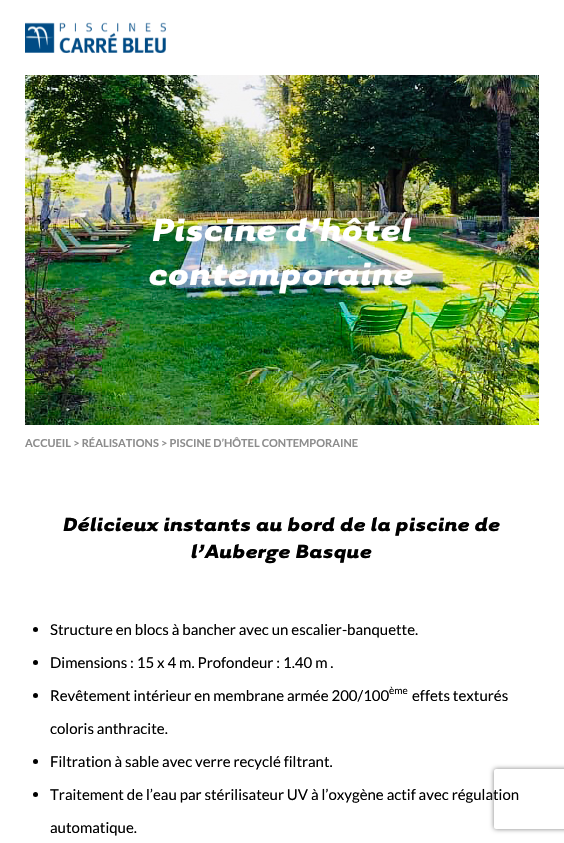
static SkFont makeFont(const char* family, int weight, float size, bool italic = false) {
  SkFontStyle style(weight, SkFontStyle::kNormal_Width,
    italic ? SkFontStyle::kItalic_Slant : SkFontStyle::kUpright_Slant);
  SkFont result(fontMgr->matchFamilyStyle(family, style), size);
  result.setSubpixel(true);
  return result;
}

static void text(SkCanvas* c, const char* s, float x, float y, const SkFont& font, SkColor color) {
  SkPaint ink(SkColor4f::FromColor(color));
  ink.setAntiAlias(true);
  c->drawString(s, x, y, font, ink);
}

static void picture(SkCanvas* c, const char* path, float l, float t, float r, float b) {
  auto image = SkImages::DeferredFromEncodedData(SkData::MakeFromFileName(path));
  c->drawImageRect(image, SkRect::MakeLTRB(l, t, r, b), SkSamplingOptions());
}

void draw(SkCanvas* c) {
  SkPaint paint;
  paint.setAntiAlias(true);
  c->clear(0xffffffff);
  picture(c, "img_01.png", 25, 22, 166, 53);
  picture(c, "img_02.png", 25, 75, 539, 425);
  SkFont face1 = makeFont("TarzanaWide", 700, 37, true);
  text(c, "Piscine d’hôtel", 152, 241, face1, 0xffffffff);
  text(c, "contemporaine", 149, 285, face1, 0xffffffff);
  SkFont face2 = makeFont("Lato", 700, 11);
  text(c, "ACCUEIL > RÉALISATIONS > PISCINE D’HÔTEL CONTEMPORAINE", 25, 447, face2, 0xff8d8d8d);
  SkFont face3 = makeFont("TarzanaWide", 700, 22, true);
  text(c, "Délicieux instants au bord de la piscine de", 63, 531, face3, 0xff000000);
  text(c, "l’Auberge Basque", 191, 558, face3, 0xff000000);
  paint.setColor(0xff000000);
  c->drawCircle(35.5f, 629.5f, 2.5f, paint);
  SkFont face4 = makeFont("Lato", 400, 15);
  text(c, "Structure en blocs à bancher avec un escalier-banquette.", 50, 635, face4, 0xff000000);
  c->drawCircle(35.5f, 662.5f, 2.5f, paint);
  text(c, "Dimensions : 15 x 4 m. Profondeur : 1.40 m .", 50, 668, face4, 0xff000000);
  c->drawCircle(35.5f, 695.5f, 2.5f, paint);
  text(c, "Revêtement intérieur en membrane armée 200/100", 50, 701, face4, 0xff000000);
  SkFont face5 = makeFont("Lato", 400, 10);
  text(c, "ème", 389, 694, face5, 0xff000000);
  text(c, "effets texturés", 412, 701, face4, 0xff000000);
  text(c, "coloris anthracite.", 50, 734, face4, 0xff000000);
  c->drawCircle(35.5f, 761.5f, 2.5f, paint);
  text(c, "Filtration à sable avec verre recyclé filtrant.", 50, 767, face4, 0xff000000);
  c->drawCircle(35.5f, 794.5f, 2.5f, paint);
  text(c, "Traitement de l’eau par stérilisateur UV à l’oxygène actif avec régulation", 50, 800, face4, 0xff000000);
  text(c, "automatique.", 50, 833, face4, 0xff000000);
  c->save();
  c->clipPath(SkPathBuilder(SkPathFillType::kEvenOdd).moveTo(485, 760).lineTo(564, 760).lineTo(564, 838).lineTo(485, 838).close().moveTo(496, 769).lineTo(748, 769).cubicTo(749, 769, 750, 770, 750, 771).lineTo(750, 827).cubicTo(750, 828, 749, 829, 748, 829).lineTo(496, 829).cubicTo(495, 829, 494, 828, 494, 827).lineTo(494, 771).cubicTo(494, 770, 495, 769, 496, 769).close().detach(), true);
  paint.setColor(0xff808080);
  paint.setMaskFilter(SkMaskFilter::MakeBlur(kNormal_SkBlurStyle, 2.5f));
  c->drawRoundRect(SkRect::MakeLTRB(494, 769, 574, 829), 2, 2, paint);
  paint.setMaskFilter(nullptr);
  c->restore();
}
